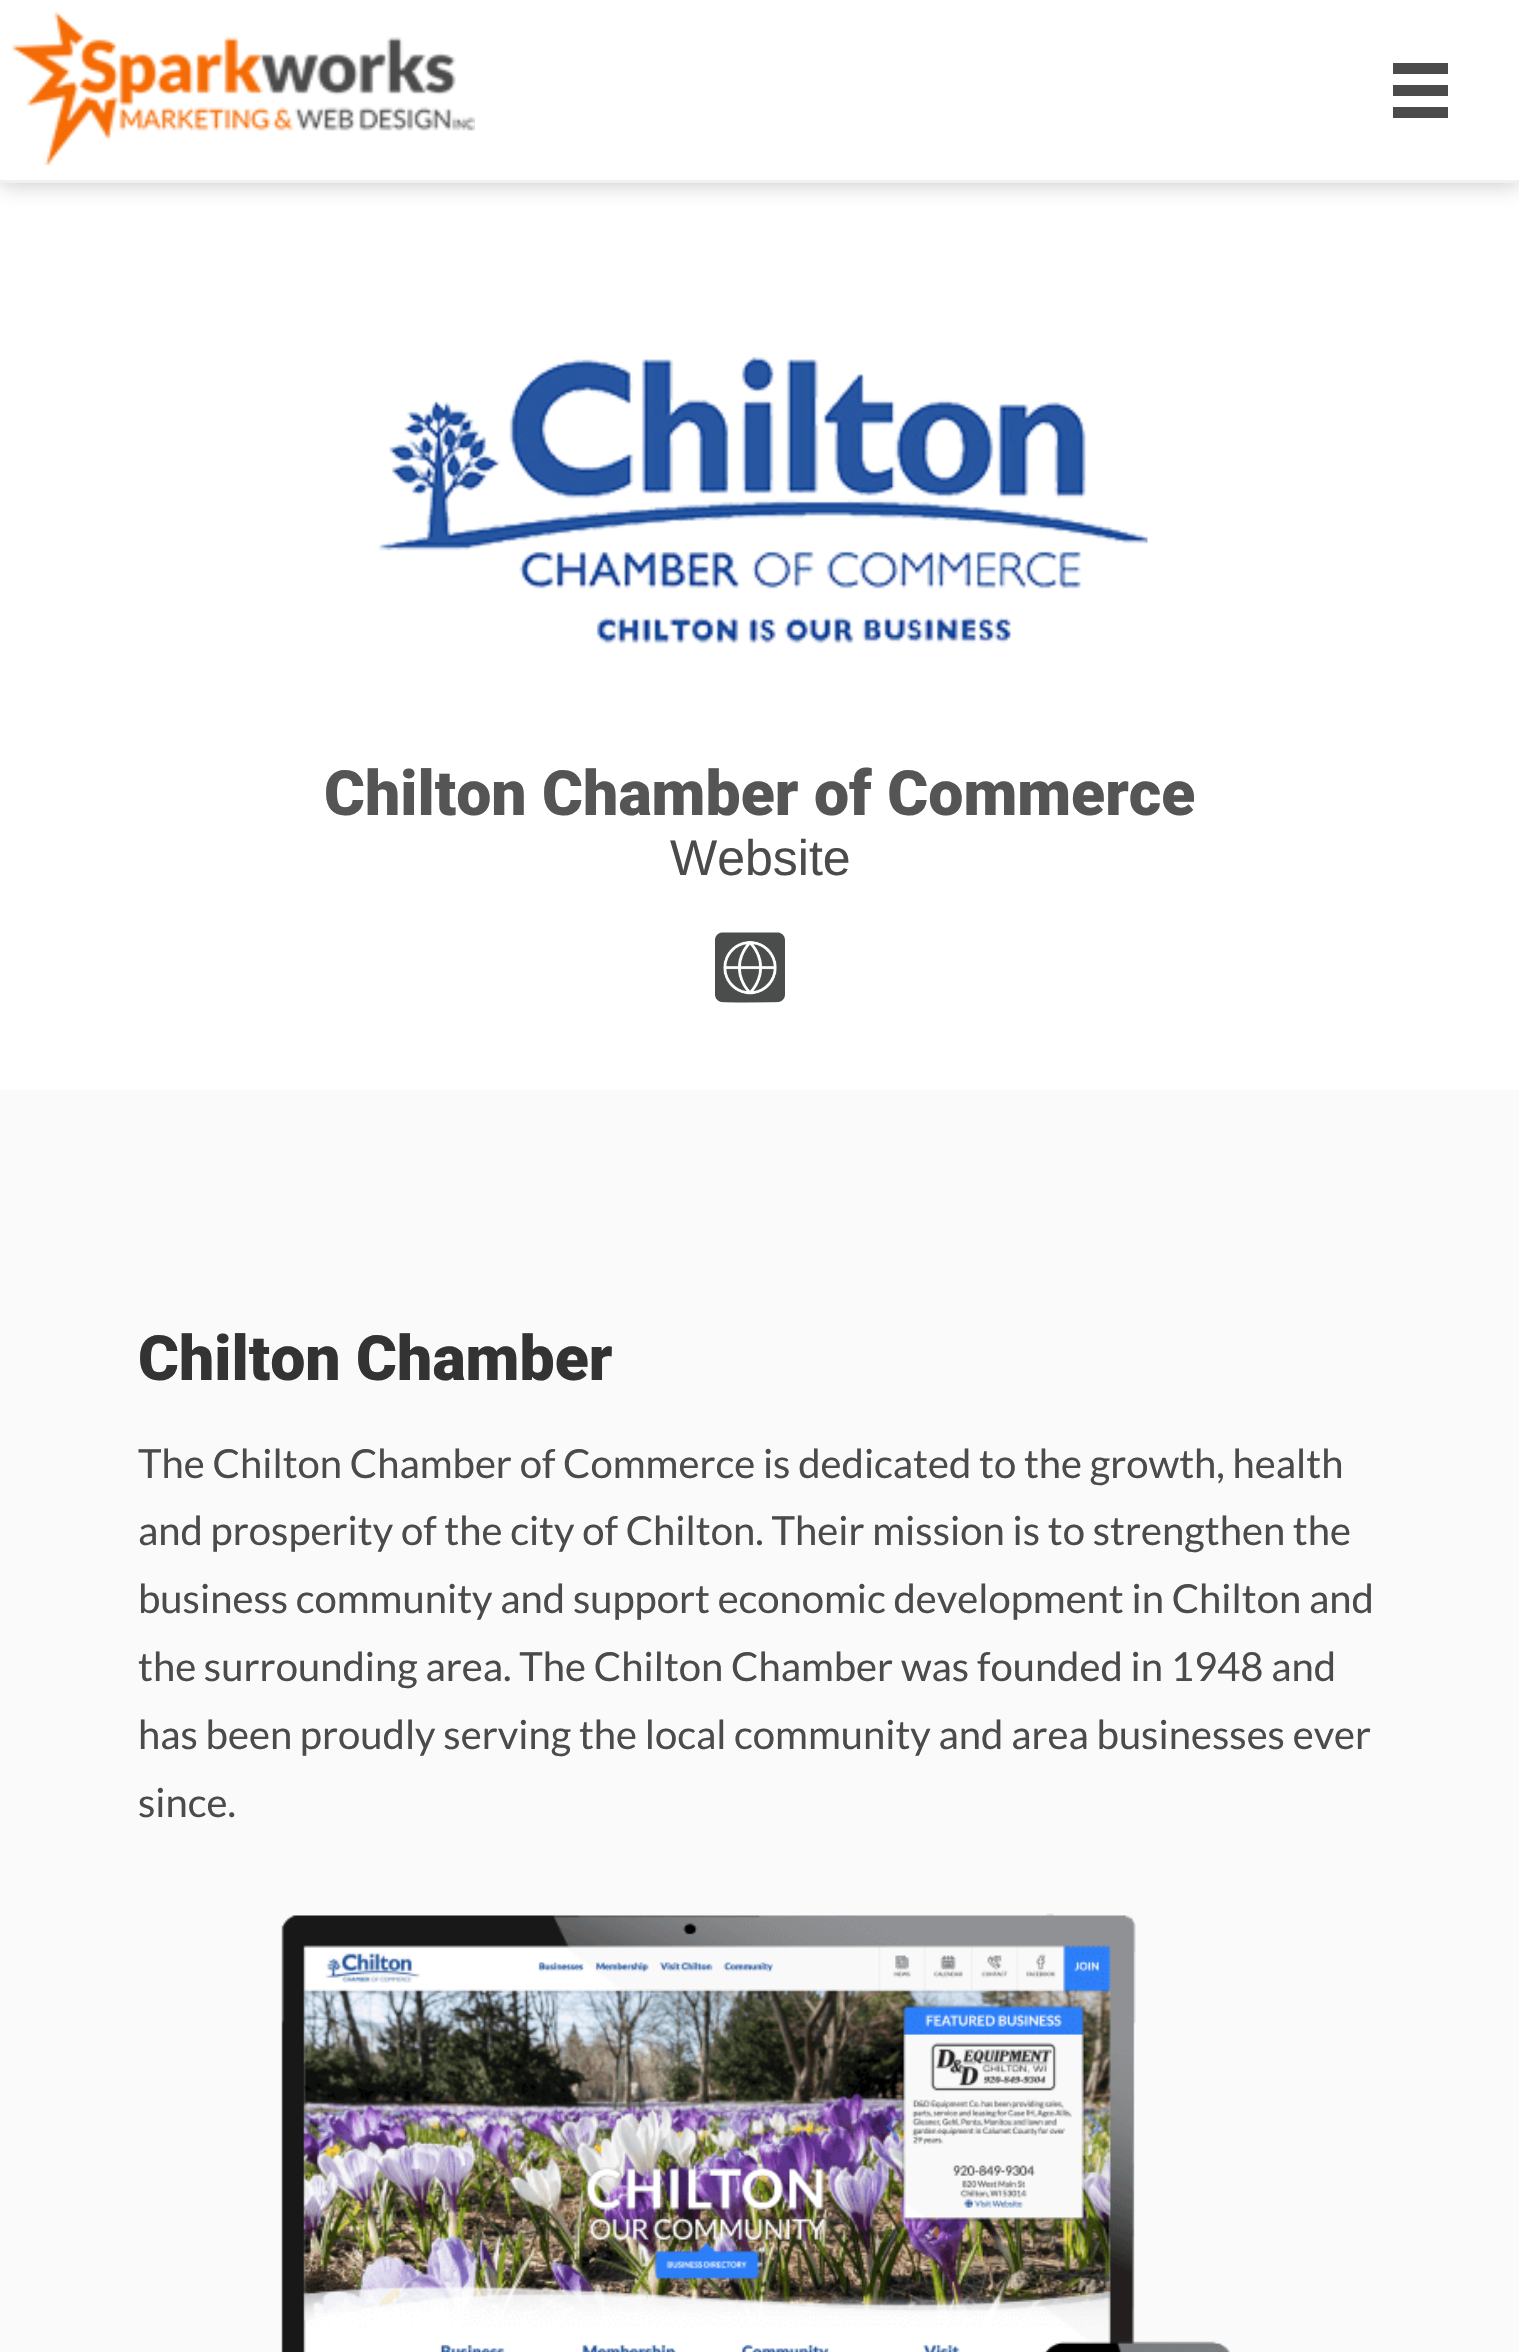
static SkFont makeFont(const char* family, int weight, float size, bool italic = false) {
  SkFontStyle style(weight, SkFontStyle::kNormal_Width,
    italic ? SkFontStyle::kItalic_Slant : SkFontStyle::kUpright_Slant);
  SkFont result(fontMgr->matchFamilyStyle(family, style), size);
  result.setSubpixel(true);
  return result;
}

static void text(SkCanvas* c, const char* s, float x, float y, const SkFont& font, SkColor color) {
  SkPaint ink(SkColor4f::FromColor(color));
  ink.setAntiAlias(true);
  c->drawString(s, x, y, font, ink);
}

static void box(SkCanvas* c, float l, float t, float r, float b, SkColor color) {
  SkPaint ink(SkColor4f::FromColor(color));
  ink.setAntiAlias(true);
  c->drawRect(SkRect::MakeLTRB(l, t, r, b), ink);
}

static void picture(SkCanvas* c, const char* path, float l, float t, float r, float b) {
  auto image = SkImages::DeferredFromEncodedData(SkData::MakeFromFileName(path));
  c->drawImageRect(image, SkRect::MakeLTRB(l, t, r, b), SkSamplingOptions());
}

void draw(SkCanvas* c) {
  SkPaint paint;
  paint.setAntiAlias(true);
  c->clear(0xffffffff);
  c->save();
  c->clipRect(SkRect::MakeLTRB(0, 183, 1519, 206));
  paint.setColor(0xffcccccc);
  paint.setMaskFilter(SkMaskFilter::MakeBlur(kNormal_SkBlurStyle, 10));
  c->drawRect(SkRect::MakeLTRB(0, 3, 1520, 185), paint);
  paint.setMaskFilter(nullptr);
  c->restore();
  box(c, 0, 180, 1519, 183, 0xfff1f1f1);
  picture(c, "img_01.png", 12, 12, 475, 165);
  box(c, 1393, 63, 1448, 74, 0xff4b4b4b);
  box(c, 1393, 85, 1448, 96, 0xff4b4b4b);
  box(c, 1393, 107, 1448, 118, 0xff4b4b4b);
  picture(c, "img_02.png", 378, 356, 1148, 644);
  SkFont face1 = makeFont("Roboto", 900, 62.5f);
  text(c, "Chilton Chamber of Commerce", 324, 815, face1, 0xff555555);
  SkFont face2 = makeFont("Liberation Sans", 400, 50);
  text(c, "Website", 670, 875, face2, 0xff4b4b4b);
  picture(c, "img_03.png", 715, 932, 785, 1003);
  box(c, 0, 1090, 1519, 2352, 0xfffafafa);
  text(c, "Chilton Chamber", 138, 1380, face1, 0xff333333);
  SkFont face3 = makeFont("Lato", 400, 40);
  text(c, "The Chilton Chamber of Commerce is dedicated to the growth, health", 138, 1478, face3, 0xff4b4b4b);
  text(c, "and prosperity of the city of Chilton. Their mission is to strengthen the", 138, 1545, face3, 0xff4b4b4b);
  text(c, "business community and support economic development in Chilton and", 138, 1613, face3, 0xff4b4b4b);
  text(c, "the surrounding area. The Chilton Chamber was founded in 1948 and", 138, 1681, face3, 0xff4b4b4b);
  text(c, "has been proudly serving the local community and area businesses ever", 138, 1749, face3, 0xff4b4b4b);
  text(c, "since.", 138, 1817, face3, 0xff4b4b4b);
  picture(c, "img_04.png", 281, 1913, 1230, 2352);
}
